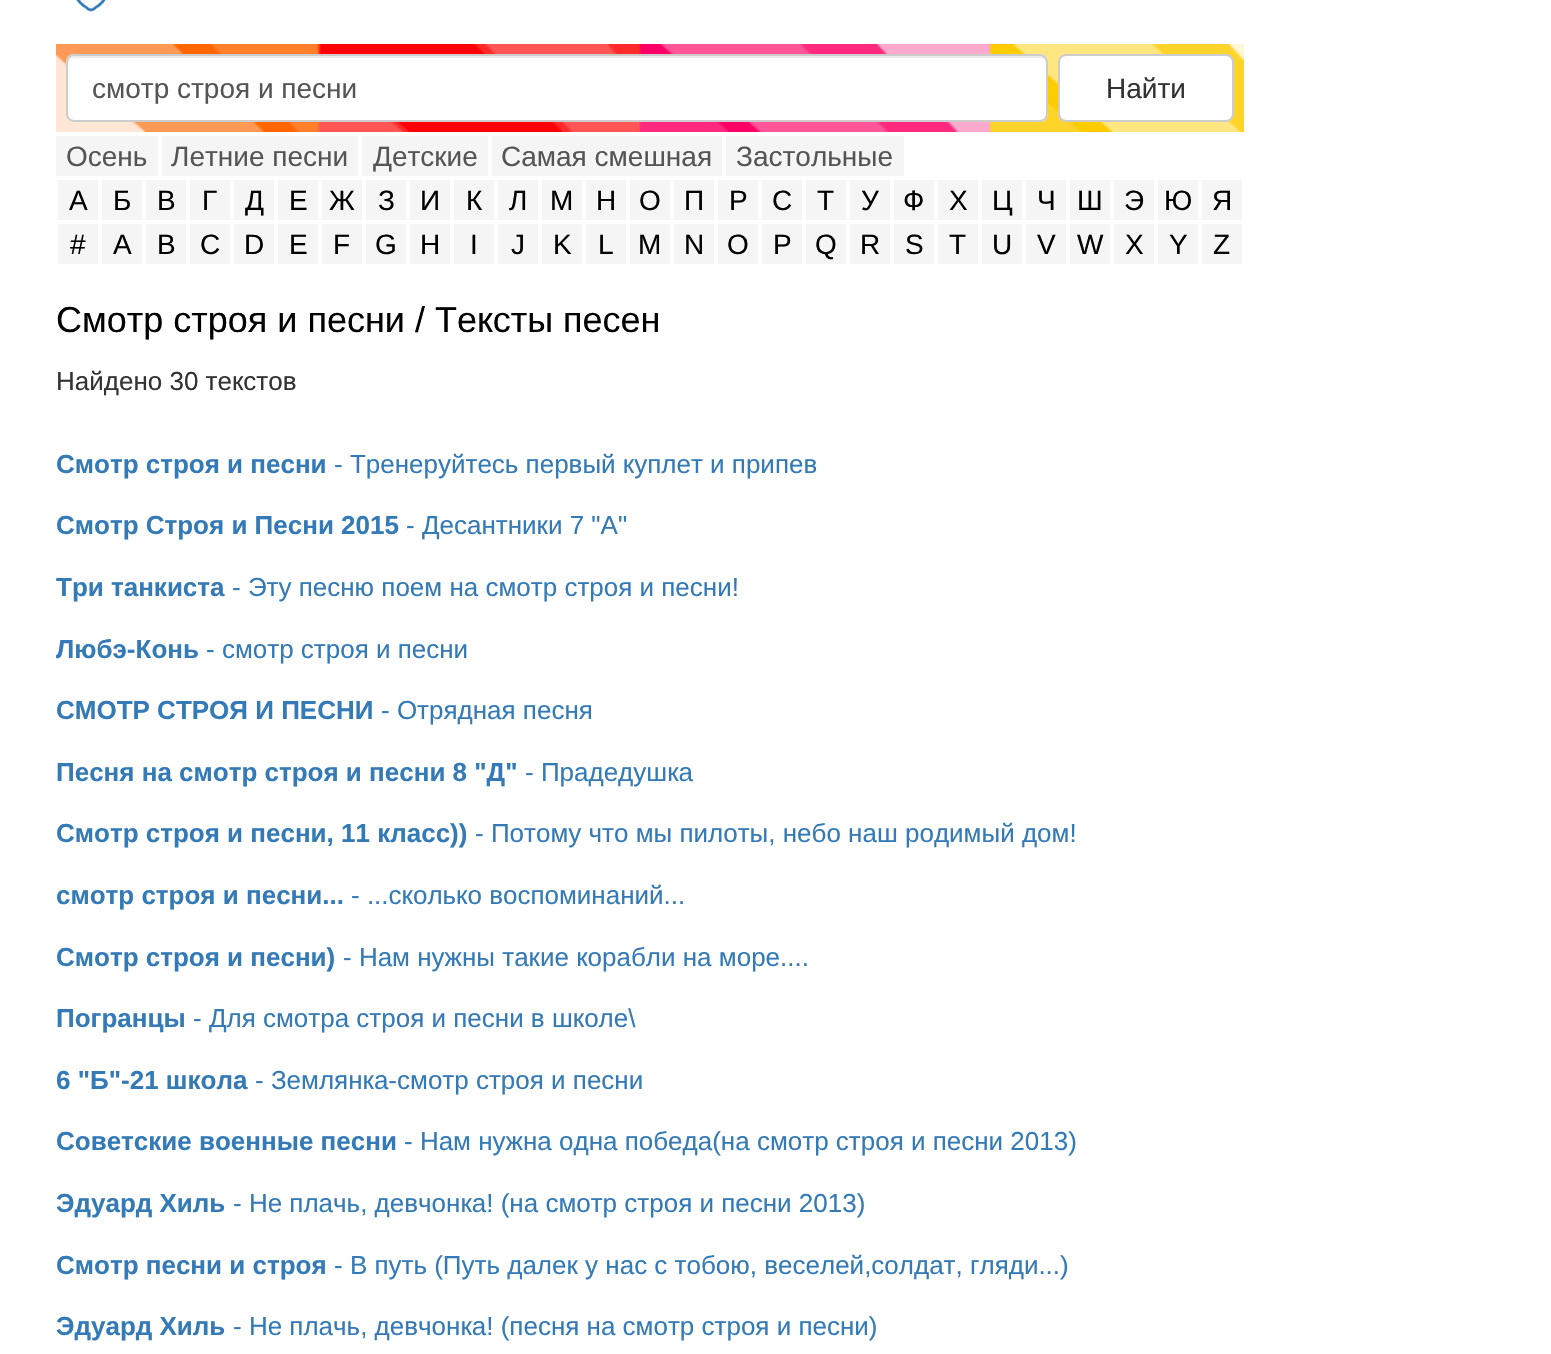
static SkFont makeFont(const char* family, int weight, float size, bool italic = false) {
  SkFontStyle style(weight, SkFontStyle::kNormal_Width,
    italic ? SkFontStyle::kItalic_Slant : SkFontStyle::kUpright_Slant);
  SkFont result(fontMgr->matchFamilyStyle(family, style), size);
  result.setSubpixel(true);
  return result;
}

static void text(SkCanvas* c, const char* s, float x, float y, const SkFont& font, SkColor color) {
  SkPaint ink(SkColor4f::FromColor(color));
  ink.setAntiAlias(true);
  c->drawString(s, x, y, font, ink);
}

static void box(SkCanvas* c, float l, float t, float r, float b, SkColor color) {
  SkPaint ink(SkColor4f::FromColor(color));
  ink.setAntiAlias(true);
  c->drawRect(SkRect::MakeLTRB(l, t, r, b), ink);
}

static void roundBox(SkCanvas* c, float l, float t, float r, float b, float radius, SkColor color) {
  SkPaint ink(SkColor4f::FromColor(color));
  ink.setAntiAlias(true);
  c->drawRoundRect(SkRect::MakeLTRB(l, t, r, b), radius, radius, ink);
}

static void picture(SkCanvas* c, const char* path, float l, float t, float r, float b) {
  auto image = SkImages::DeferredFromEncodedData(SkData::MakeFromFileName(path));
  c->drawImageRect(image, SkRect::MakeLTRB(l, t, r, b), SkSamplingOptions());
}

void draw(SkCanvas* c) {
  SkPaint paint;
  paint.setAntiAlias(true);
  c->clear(0xffffffff);
  picture(c, "img_01.png", 76, 0, 106, 12);
  picture(c, "img_02.png", 56, 44, 1244, 132);
  roundBox(c, 66, 54, 1048, 122, 8, 0xffffffff);
  paint.setColor(0xffececec);
  c->drawPath(SkPathBuilder().moveTo(74, 58).lineTo(1040, 58).cubicTo(1043, 58, 1046, 61, 1046, 64).lineTo(1046, 62).cubicTo(1046, 59, 1043, 56, 1040, 56).lineTo(74, 56).cubicTo(71, 56, 68, 59, 68, 62).lineTo(68, 64).cubicTo(68, 61, 71, 58, 74, 58).close().detach(), paint);
  paint.setStyle(SkPaint::kStroke_Style);
  paint.setStrokeWidth(2);
  paint.setColor(0xffcccccc);
  c->drawRoundRect(SkRect::MakeLTRB(67, 55, 1047, 121), 7, 7, paint);
  SkFont face1 = makeFont("Liberation Sans", 400, 28);
  text(c, "смотр строя и песни", 92, 98, face1, 0xff555555);
  paint.setStyle(SkPaint::kFill_Style);
  paint.setColor(0xffffffff);
  c->drawRoundRect(SkRect::MakeLTRB(1059, 55, 1233, 121), 7, 7, paint);
  paint.setStyle(SkPaint::kStroke_Style);
  paint.setColor(0xffcccccc);
  c->drawRoundRect(SkRect::MakeLTRB(1059, 55, 1233, 121), 7, 7, paint);
  text(c, "Найти", 1106, 98, face1, 0xff333333);
  box(c, 56, 136, 158, 176, 0xfff5f5f5);
  text(c, "Осень", 66, 166, face1, 0xff555555);
  box(c, 162, 136, 358, 176, 0xfff5f5f5);
  text(c, "Летние песни", 171, 166, face1, 0xff555555);
  box(c, 362, 136, 488, 176, 0xfff5f5f5);
  text(c, "Детские", 373, 166, face1, 0xff555555);
  box(c, 492, 136, 722, 176, 0xfff5f5f5);
  text(c, "Cамая смешная", 501, 166, face1, 0xff555555);
  box(c, 726, 136, 904, 176, 0xfff5f5f5);
  text(c, "Застольные", 736, 166, face1, 0xff555555);
  box(c, 58, 180, 98, 220, 0xfff5f5f5);
  text(c, "А", 69, 210, face1, 0xff000000);
  box(c, 102, 180, 142, 220, 0xfff5f5f5);
  text(c, "Б", 113, 210, face1, 0xff000000);
  box(c, 146, 180, 186, 220, 0xfff5f5f5);
  text(c, "В", 157, 210, face1, 0xff000000);
  box(c, 190, 180, 230, 220, 0xfff5f5f5);
  text(c, "Г", 202, 210, face1, 0xff000000);
  box(c, 234, 180, 274, 220, 0xfff5f5f5);
  text(c, "Д", 245, 210, face1, 0xff000000);
  box(c, 278, 180, 318, 220, 0xfff5f5f5);
  text(c, "Е", 289, 210, face1, 0xff000000);
  box(c, 322, 180, 362, 220, 0xfff5f5f5);
  text(c, "Ж", 329, 210, face1, 0xff000000);
  box(c, 366, 180, 406, 220, 0xfff5f5f5);
  text(c, "З", 378, 210, face1, 0xff000000);
  box(c, 410, 180, 450, 220, 0xfff5f5f5);
  text(c, "И", 420, 210, face1, 0xff000000);
  box(c, 454, 180, 494, 220, 0xfff5f5f5);
  text(c, "К", 466, 210, face1, 0xff000000);
  box(c, 498, 180, 538, 220, 0xfff5f5f5);
  text(c, "Л", 509, 210, face1, 0xff000000);
  box(c, 542, 180, 582, 220, 0xfff5f5f5);
  text(c, "М", 550, 210, face1, 0xff000000);
  box(c, 586, 180, 626, 220, 0xfff5f5f5);
  text(c, "Н", 596, 210, face1, 0xff000000);
  box(c, 630, 180, 670, 220, 0xfff5f5f5);
  text(c, "О", 639, 210, face1, 0xff000000);
  box(c, 674, 180, 714, 220, 0xfff5f5f5);
  text(c, "П", 684, 210, face1, 0xff000000);
  box(c, 718, 180, 758, 220, 0xfff5f5f5);
  text(c, "Р", 729, 210, face1, 0xff000000);
  box(c, 762, 180, 802, 220, 0xfff5f5f5);
  text(c, "С", 772, 210, face1, 0xff000000);
  box(c, 806, 180, 846, 220, 0xfff5f5f5);
  text(c, "Т", 817, 210, face1, 0xff000000);
  box(c, 850, 180, 890, 220, 0xfff5f5f5);
  text(c, "У", 861, 210, face1, 0xff000000);
  box(c, 894, 180, 934, 220, 0xfff5f5f5);
  text(c, "Ф", 903, 210, face1, 0xff000000);
  box(c, 938, 180, 978, 220, 0xfff5f5f5);
  text(c, "Х", 949, 210, face1, 0xff000000);
  box(c, 982, 180, 1022, 220, 0xfff5f5f5);
  text(c, "Ц", 992, 210, face1, 0xff000000);
  box(c, 1026, 180, 1066, 220, 0xfff5f5f5);
  text(c, "Ч", 1037, 210, face1, 0xff000000);
  box(c, 1070, 180, 1110, 220, 0xfff5f5f5);
  text(c, "Ш", 1077, 210, face1, 0xff000000);
  box(c, 1114, 180, 1154, 220, 0xfff5f5f5);
  text(c, "Э", 1124, 210, face1, 0xff000000);
  box(c, 1158, 180, 1198, 220, 0xfff5f5f5);
  text(c, "Ю", 1164, 210, face1, 0xff000000);
  box(c, 1202, 180, 1242, 220, 0xfff5f5f5);
  text(c, "Я", 1212, 210, face1, 0xff000000);
  box(c, 58, 224, 98, 264, 0xfff5f5f5);
  text(c, "#", 70, 254, face1, 0xff000000);
  box(c, 102, 224, 142, 264, 0xfff5f5f5);
  text(c, "A", 113, 254, face1, 0xff000000);
  box(c, 146, 224, 186, 264, 0xfff5f5f5);
  text(c, "B", 157, 254, face1, 0xff000000);
  box(c, 190, 224, 230, 264, 0xfff5f5f5);
  text(c, "C", 200, 254, face1, 0xff000000);
  box(c, 234, 224, 274, 264, 0xfff5f5f5);
  text(c, "D", 244, 254, face1, 0xff000000);
  box(c, 278, 224, 318, 264, 0xfff5f5f5);
  text(c, "E", 289, 254, face1, 0xff000000);
  box(c, 322, 224, 362, 264, 0xfff5f5f5);
  text(c, "F", 333, 254, face1, 0xff000000);
  box(c, 366, 224, 406, 264, 0xfff5f5f5);
  text(c, "G", 375, 254, face1, 0xff000000);
  box(c, 410, 224, 450, 264, 0xfff5f5f5);
  text(c, "H", 420, 254, face1, 0xff000000);
  box(c, 454, 224, 494, 264, 0xfff5f5f5);
  text(c, "I", 470, 254, face1, 0xff000000);
  box(c, 498, 224, 538, 264, 0xfff5f5f5);
  text(c, "J", 511, 254, face1, 0xff000000);
  box(c, 542, 224, 582, 264, 0xfff5f5f5);
  text(c, "K", 553, 254, face1, 0xff000000);
  box(c, 586, 224, 626, 264, 0xfff5f5f5);
  text(c, "L", 598, 254, face1, 0xff000000);
  box(c, 630, 224, 670, 264, 0xfff5f5f5);
  text(c, "M", 638, 254, face1, 0xff000000);
  box(c, 674, 224, 714, 264, 0xfff5f5f5);
  text(c, "N", 684, 254, face1, 0xff000000);
  box(c, 718, 224, 758, 264, 0xfff5f5f5);
  text(c, "O", 727, 254, face1, 0xff000000);
  box(c, 762, 224, 802, 264, 0xfff5f5f5);
  text(c, "P", 773, 254, face1, 0xff000000);
  box(c, 806, 224, 846, 264, 0xfff5f5f5);
  text(c, "Q", 815, 254, face1, 0xff000000);
  box(c, 850, 224, 890, 264, 0xfff5f5f5);
  text(c, "R", 860, 254, face1, 0xff000000);
  box(c, 894, 224, 934, 264, 0xfff5f5f5);
  text(c, "S", 905, 254, face1, 0xff000000);
  box(c, 938, 224, 978, 264, 0xfff5f5f5);
  text(c, "T", 949, 254, face1, 0xff000000);
  box(c, 982, 224, 1022, 264, 0xfff5f5f5);
  text(c, "U", 992, 254, face1, 0xff000000);
  box(c, 1026, 224, 1066, 264, 0xfff5f5f5);
  text(c, "V", 1037, 254, face1, 0xff000000);
  box(c, 1070, 224, 1110, 264, 0xfff5f5f5);
  text(c, "W", 1077, 254, face1, 0xff000000);
  box(c, 1114, 224, 1154, 264, 0xfff5f5f5);
  text(c, "X", 1125, 254, face1, 0xff000000);
  box(c, 1158, 224, 1198, 264, 0xfff5f5f5);
  text(c, "Y", 1169, 254, face1, 0xff000000);
  box(c, 1202, 224, 1242, 264, 0xfff5f5f5);
  text(c, "Z", 1213, 254, face1, 0xff000000);
  SkFont face2 = makeFont("Liberation Sans", 400, 36);
  text(c, "Смотр строя и песни / Тексты песен", 56, 332, face2, 0xff000000);
  SkFont face3 = makeFont("Liberation Sans", 400, 26);
  text(c, "Найдено 30 текстов", 56, 390, face3, 0xff333333);
  SkFont face4 = makeFont("Liberation Sans", 700, 26);
  text(c, "Смотр строя и песни", 56, 473, face4, 0xff337ab7);
  text(c, "- Тренеруйтесь первый куплет и припев", 334, 473, face3, 0xff337ab7);
  text(c, "Смотр Строя и Песни 2015", 56, 534, face4, 0xff337ab7);
  text(c, "- Десантники 7 \"А\"", 406, 534, face3, 0xff337ab7);
  text(c, "Три танкиста", 56, 596, face4, 0xff337ab7);
  text(c, "- Эту песню поем на смотр строя и песни!", 232, 596, face3, 0xff337ab7);
  text(c, "Любэ-Конь", 56, 658, face4, 0xff337ab7);
  text(c, "- смотр строя и песни", 206, 658, face3, 0xff337ab7);
  text(c, "СМОТР СТРОЯ И ПЕСНИ", 56, 719, face4, 0xff337ab7);
  text(c, "- Отрядная песня", 381, 719, face3, 0xff337ab7);
  text(c, "Песня на смотр строя и песни 8 \"Д\"", 56, 781, face4, 0xff337ab7);
  text(c, "- Прадедушка", 525, 781, face3, 0xff337ab7);
  text(c, "Смотр строя и песни, 11 класс))", 56, 842, face4, 0xff337ab7);
  text(c, "- Потому что мы пилоты, небо наш родимый дом!", 475, 842, face3, 0xff337ab7);
  text(c, "смотр строя и песни...", 56, 904, face4, 0xff337ab7);
  text(c, "- ...сколько воспоминаний...", 351, 904, face3, 0xff337ab7);
  text(c, "Смотр строя и песни)", 56, 966, face4, 0xff337ab7);
  text(c, "- Нам нужны такие корабли на море....", 343, 966, face3, 0xff337ab7);
  text(c, "Погранцы", 56, 1027, face4, 0xff337ab7);
  text(c, "- Для смотра строя и песни в школе\\", 193, 1027, face3, 0xff337ab7);
  text(c, "6 \"Б\"-21 школа", 56, 1089, face4, 0xff337ab7);
  text(c, "- Землянка-смотр строя и песни", 255, 1089, face3, 0xff337ab7);
  text(c, "Советские военные песни", 56, 1150, face4, 0xff337ab7);
  text(c, "- Нам нужна одна победа(на смотр строя и песни 2013)", 404, 1150, face3, 0xff337ab7);
  text(c, "Эдуард Хиль", 56, 1212, face4, 0xff337ab7);
  text(c, "- Не плачь, девчонка! (на смотр строя и песни 2013)", 233, 1212, face3, 0xff337ab7);
  text(c, "Смотр песни и строя", 56, 1274, face4, 0xff337ab7);
  text(c, "- В путь (Путь далек у нас с тобою, веселей,солдат, гляди...)", 334, 1274, face3, 0xff337ab7);
  text(c, "Эдуард Хиль", 56, 1335, face4, 0xff337ab7);
  text(c, "- Не плачь, девчонка! (песня на смотр строя и песни)", 233, 1335, face3, 0xff337ab7);
}
